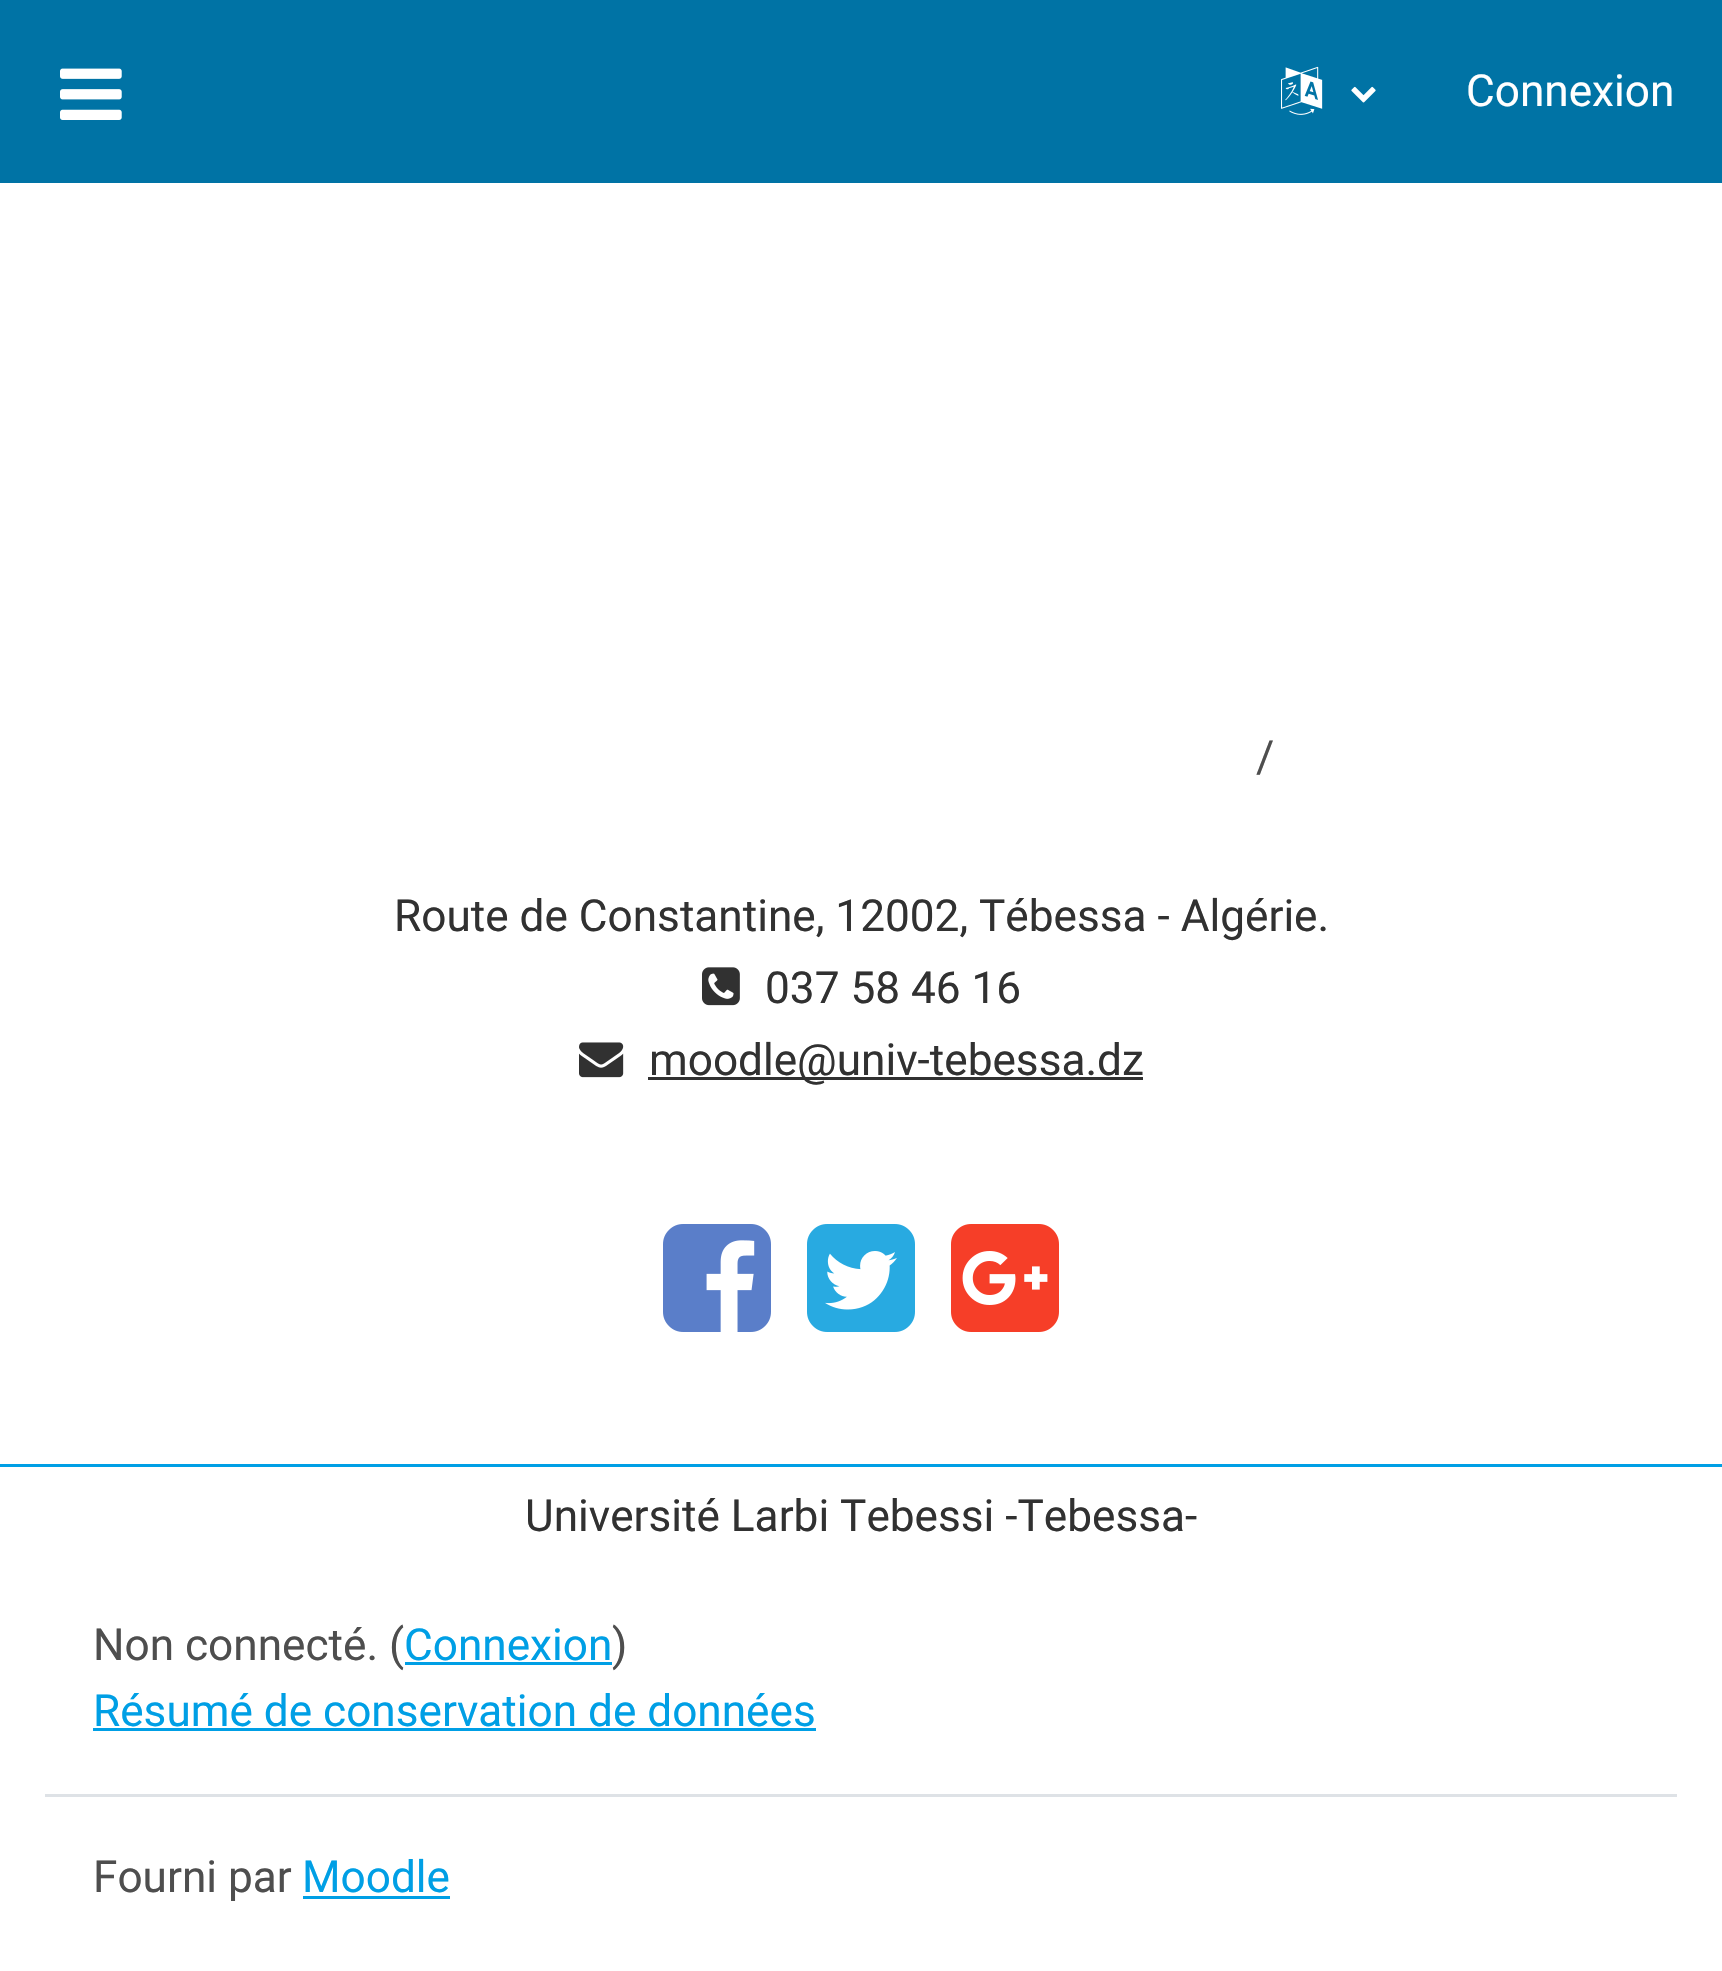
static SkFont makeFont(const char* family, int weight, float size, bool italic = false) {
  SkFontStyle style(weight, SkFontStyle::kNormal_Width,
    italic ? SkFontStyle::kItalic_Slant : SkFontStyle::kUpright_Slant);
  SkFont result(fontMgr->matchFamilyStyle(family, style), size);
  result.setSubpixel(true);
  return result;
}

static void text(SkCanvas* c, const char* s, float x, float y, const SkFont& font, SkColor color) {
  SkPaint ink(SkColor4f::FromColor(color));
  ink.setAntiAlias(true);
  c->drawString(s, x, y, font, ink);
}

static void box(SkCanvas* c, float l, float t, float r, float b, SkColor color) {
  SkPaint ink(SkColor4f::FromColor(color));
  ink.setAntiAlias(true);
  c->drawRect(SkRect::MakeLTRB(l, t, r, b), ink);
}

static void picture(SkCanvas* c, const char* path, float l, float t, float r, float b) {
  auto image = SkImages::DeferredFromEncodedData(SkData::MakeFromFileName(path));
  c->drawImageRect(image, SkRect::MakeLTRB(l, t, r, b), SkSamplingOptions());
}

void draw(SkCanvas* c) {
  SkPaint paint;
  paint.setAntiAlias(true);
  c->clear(0xffffffff);
  box(c, 0, 0, 1722, 183, 0xff0073a5);
  picture(c, "img_01.png", 60, 68, 122, 120);
  picture(c, "img_02.png", 1281, 66, 1323, 115);
  picture(c, "img_03.png", 1351, 86, 1376, 103);
  SkFont face1 = makeFont("Roboto", 400, 44.15f);
  text(c, "Connexion", 1466, 106, face1, 0xffffffff);
  text(c, "/", 1256, 772, face1, 0xff4e4e4e);
  text(c, "Route de Constantine, 12002, Tébessa - Algérie.", 394, 931, face1, 0xff313131);
  picture(c, "img_04.png", 702, 967, 740, 1006);
  text(c, "037 58 46 16", 765, 1003, face1, 0xff313131);
  picture(c, "img_05.png", 579, 1042, 624, 1078);
  box(c, 648, 1077, 1143, 1080, 0xff313131);
  text(c, "moodle@univ-tebessa.dz", 649, 1075, face1, 0xff313131);
  picture(c, "img_06.png", 663, 1224, 771, 1332);
  picture(c, "img_07.png", 807, 1224, 915, 1332);
  picture(c, "img_08.png", 951, 1224, 1059, 1332);
  box(c, 0, 1464, 1722, 1467, 0xff009fe5);
  text(c, "Université Larbi Tebessi -Tebessa-", 525, 1531, face1, 0xff313131);
  box(c, 45, 1794, 1677, 1797, 0xffdee2e6);
  text(c, "Non connecté. (", 93, 1660, face1, 0xff4e4e4e);
  text(c, "Connexion", 404, 1660, face1, 0xff009fe5);
  box(c, 405, 1662, 612, 1665, 0xff009fe5);
  text(c, ")", 612, 1660, face1, 0xff4e4e4e);
  text(c, "Résumé de conservation de données", 93, 1726, face1, 0xff009fe5);
  box(c, 93, 1728, 816, 1731, 0xff009fe5);
  text(c, "Fourni par", 93, 1892, face1, 0xff4e4e4e);
  text(c, "Moodle", 302, 1892, face1, 0xff009fe5);
  box(c, 303, 1896, 450, 1899, 0xff009fe5);
}
